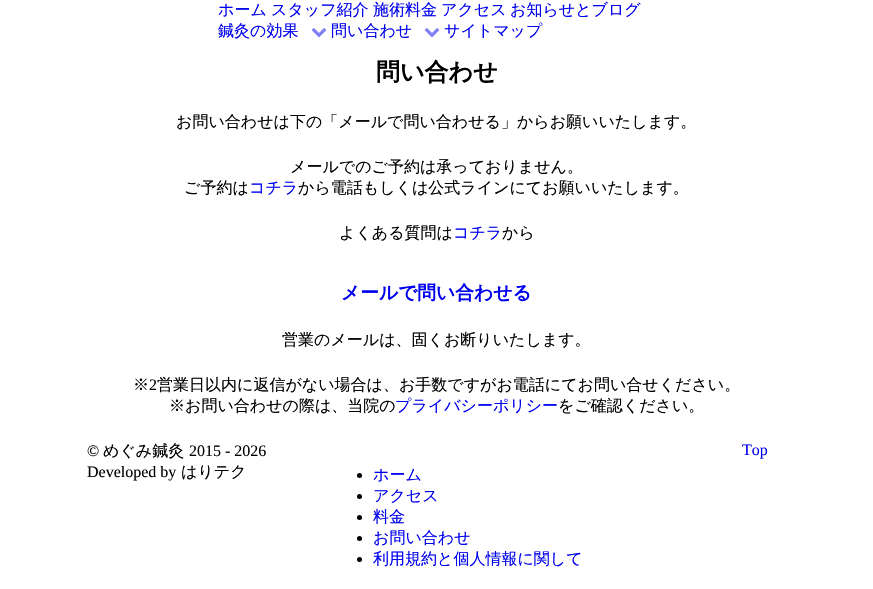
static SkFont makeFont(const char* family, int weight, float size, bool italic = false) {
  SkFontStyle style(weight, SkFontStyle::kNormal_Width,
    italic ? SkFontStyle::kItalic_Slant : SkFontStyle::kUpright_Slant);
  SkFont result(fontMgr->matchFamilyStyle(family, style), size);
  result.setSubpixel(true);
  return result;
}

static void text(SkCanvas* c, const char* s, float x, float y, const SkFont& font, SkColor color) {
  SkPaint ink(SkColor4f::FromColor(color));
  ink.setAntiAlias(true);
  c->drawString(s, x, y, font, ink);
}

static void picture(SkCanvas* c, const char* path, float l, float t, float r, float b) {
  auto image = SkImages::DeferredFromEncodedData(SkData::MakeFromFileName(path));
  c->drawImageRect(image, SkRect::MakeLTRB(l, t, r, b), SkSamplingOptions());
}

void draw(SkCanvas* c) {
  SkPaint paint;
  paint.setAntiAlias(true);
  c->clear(0xffffffff);
  SkFont face1 = makeFont("WenQuanYi Zen Hei", 500, 16);
  text(c, "ホーム", 218, 15, face1, 0xff0000ee);
  text(c, "スタッフ紹介", 271, 15, face1, 0xff0000ee);
  text(c, "施術料金", 373, 15, face1, 0xff0000ee);
  text(c, "アクセス", 441, 15, face1, 0xff0000ee);
  text(c, "お知らせとブログ", 510, 15, face1, 0xff0000ee);
  text(c, "鍼灸の効果", 218, 36, face1, 0xff0000ee);
  picture(c, "img_01.png", 311, 28, 327, 38);
  text(c, "問い合わせ", 331, 36, face1, 0xff0000ee);
  picture(c, "img_01.png", 424, 28, 440, 38);
  text(c, "サイトマップ", 444, 36, face1, 0xff0000ee);
  SkFont face2 = makeFont("WenQuanYi Zen Hei", 700, 24);
  text(c, "問い合わせ", 376, 80, face2, 0xff000000);
  text(c, "お問い合わせは下の「メールで問い合わせる」からお願いいたします。", 176, 127, face1, 0xff000000);
  text(c, "メールでのご予約は承っておりません。", 290, 172, face1, 0xff000000);
  text(c, "ご予約は", 184, 193, face1, 0xff000000);
  text(c, "コチラ", 249, 193, face1, 0xff0000ee);
  text(c, "から電話もしくは公式ラインにてお願いいたします。", 298, 193, face1, 0xff000000);
  text(c, "よくある質問は", 339, 238, face1, 0xff000000);
  text(c, "コチラ", 453, 238, face1, 0xff0000ee);
  text(c, "から", 502, 238, face1, 0xff000000);
  SkFont face3 = makeFont("WenQuanYi Zen Hei", 700, 18.75f);
  text(c, "メールで問い合わせる", 341, 299, face3, 0xff0000ee);
  text(c, "営業のメールは、固くお断りいたします。", 282, 345, face1, 0xff000000);
  text(c, "※", 133, 390, face1, 0xff000000);
  SkFont face4 = makeFont("Liberation Serif", 400, 16);
  text(c, "2", 149, 390, face4, 0xff000000);
  text(c, "営業日以内に返信がない場合は、お手数ですがお電話にてお問い合せください。", 157, 390, face1, 0xff000000);
  text(c, "※お問い合わせの際は、当院の", 169, 411, face1, 0xff000000);
  text(c, "プライバシーポリシー", 395, 411, face1, 0xff0000ee);
  text(c, "をご確認ください。", 558, 411, face1, 0xff000000);
  text(c, "©", 87, 456, face4, 0xff000000);
  text(c, "めぐみ鍼灸", 103, 456, face1, 0xff000000);
  text(c, "2015 - 2026", 189, 456, face4, 0xff000000);
  text(c, "Developed by", 87, 477, face4, 0xff000000);
  text(c, "はりテク", 181, 477, face1, 0xff000000);
  text(c, "Top", 742, 455, face4, 0xff0000ee);
  paint.setColor(0xff000000);
  c->drawCircle(359.5f, 475.5f, 2.5f, paint);
  text(c, "ホーム", 373, 480, face1, 0xff0000ee);
  c->drawCircle(359.5f, 496.5f, 2.5f, paint);
  text(c, "アクセス", 373, 501, face1, 0xff0000ee);
  c->drawCircle(359.5f, 517.5f, 2.5f, paint);
  text(c, "料金", 373, 522, face1, 0xff0000ee);
  c->drawCircle(359.5f, 538.5f, 2.5f, paint);
  text(c, "お問い合わせ", 373, 543, face1, 0xff0000ee);
  c->drawCircle(359.5f, 559.5f, 2.5f, paint);
  text(c, "利用規約と個人情報に関して", 373, 564, face1, 0xff0000ee);
}
